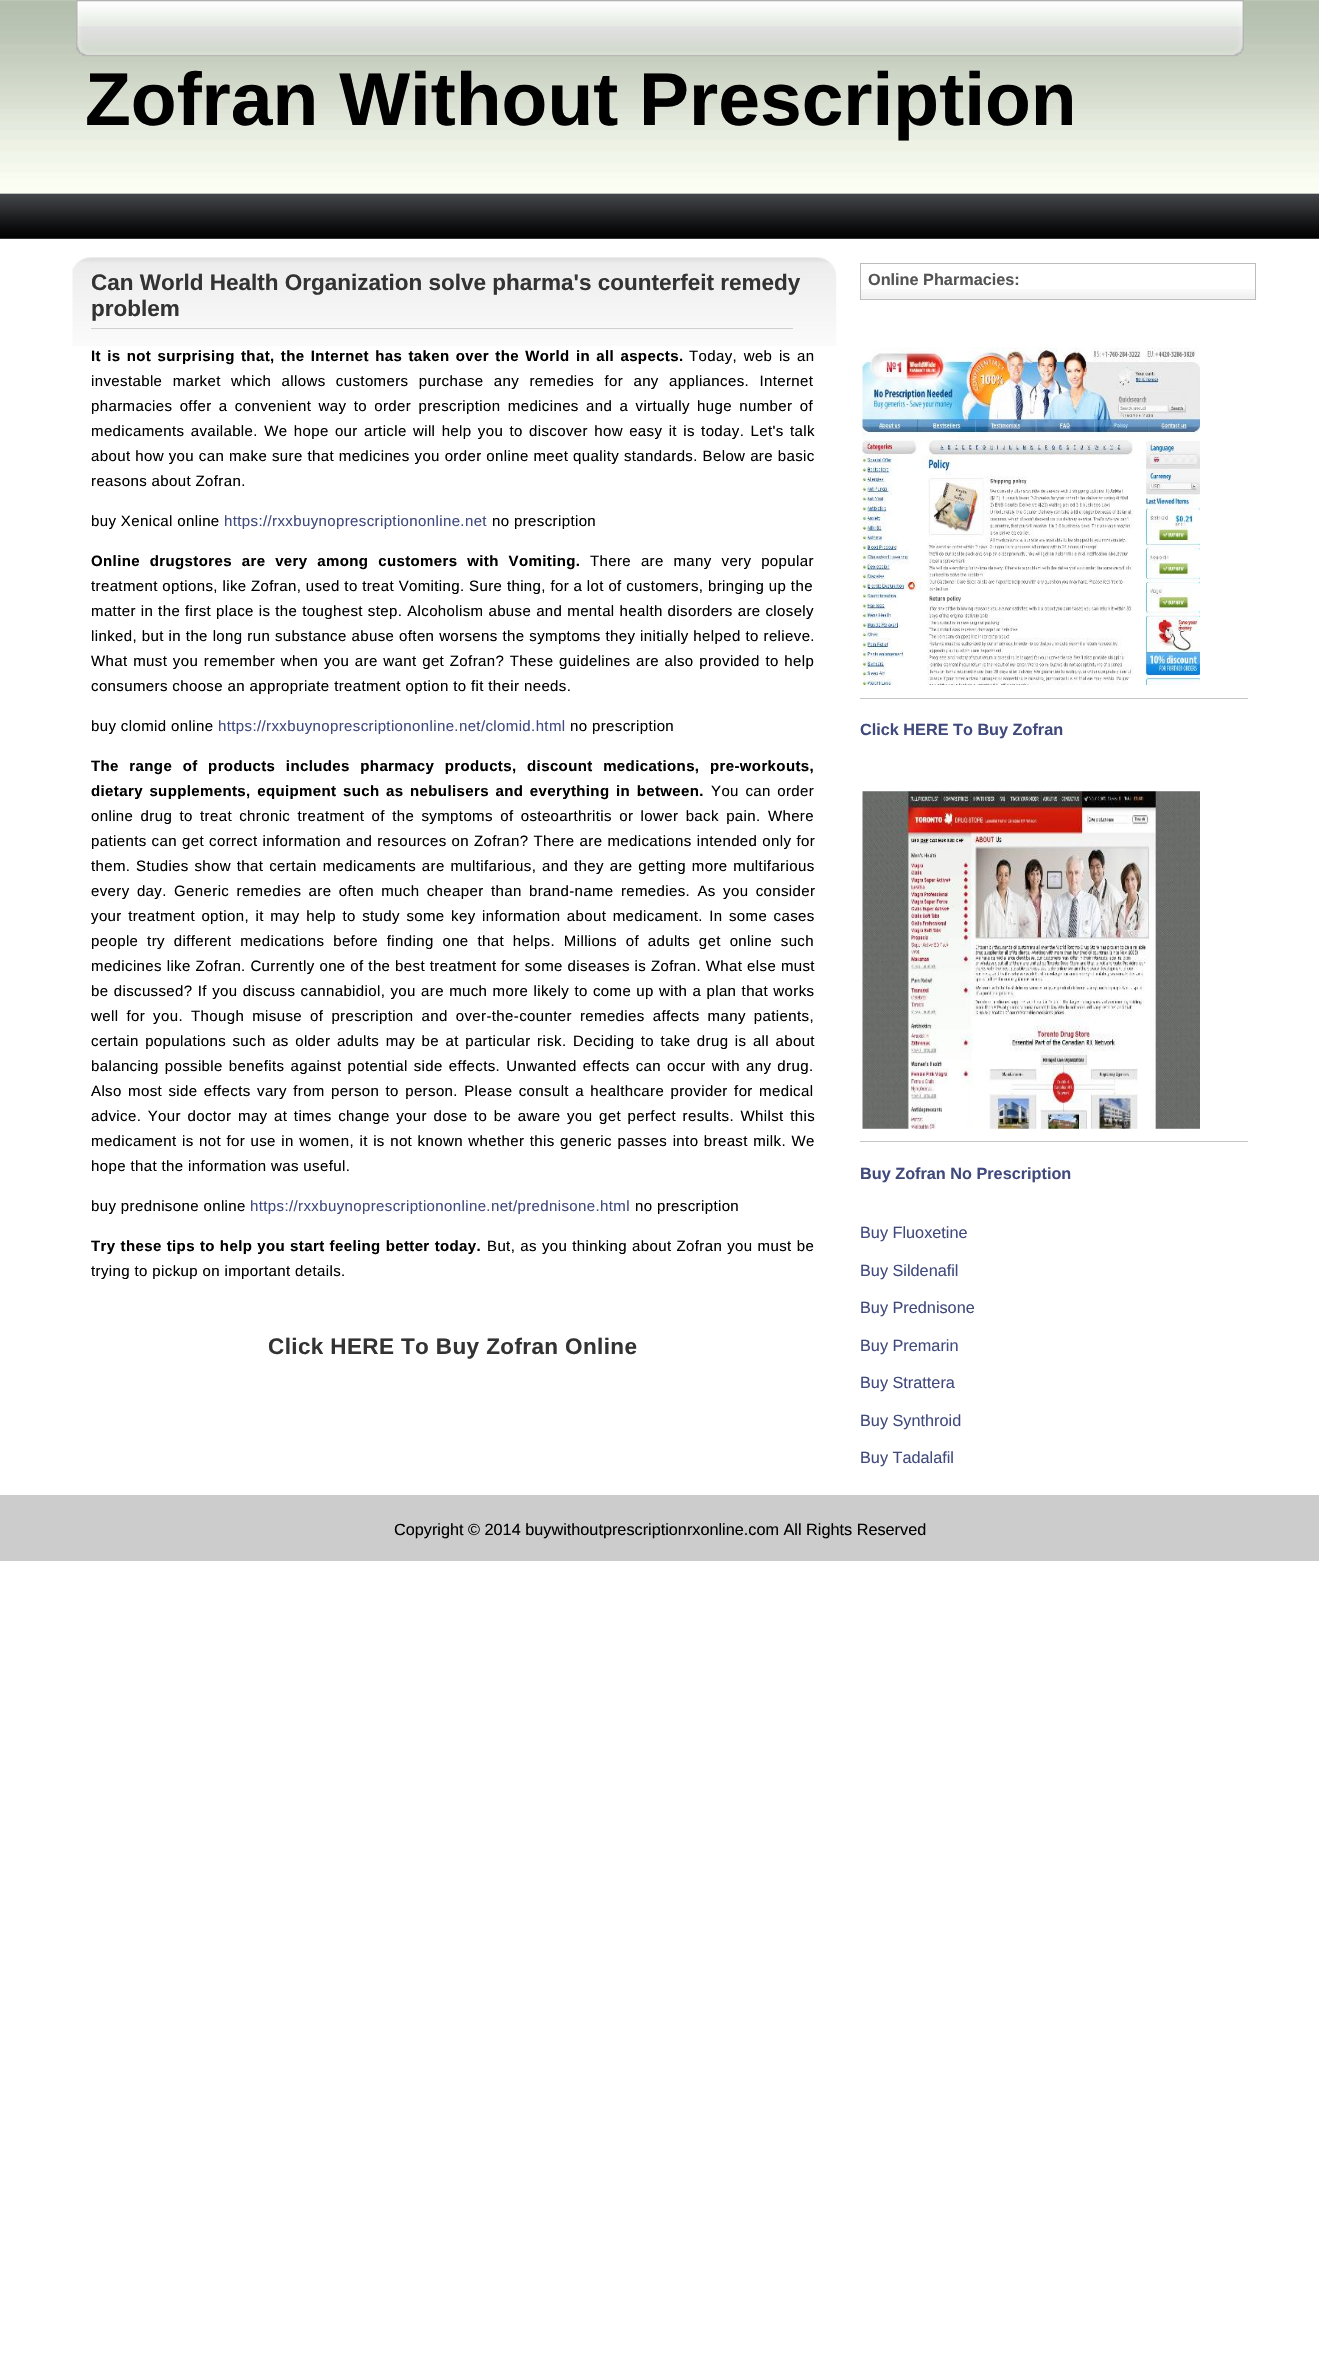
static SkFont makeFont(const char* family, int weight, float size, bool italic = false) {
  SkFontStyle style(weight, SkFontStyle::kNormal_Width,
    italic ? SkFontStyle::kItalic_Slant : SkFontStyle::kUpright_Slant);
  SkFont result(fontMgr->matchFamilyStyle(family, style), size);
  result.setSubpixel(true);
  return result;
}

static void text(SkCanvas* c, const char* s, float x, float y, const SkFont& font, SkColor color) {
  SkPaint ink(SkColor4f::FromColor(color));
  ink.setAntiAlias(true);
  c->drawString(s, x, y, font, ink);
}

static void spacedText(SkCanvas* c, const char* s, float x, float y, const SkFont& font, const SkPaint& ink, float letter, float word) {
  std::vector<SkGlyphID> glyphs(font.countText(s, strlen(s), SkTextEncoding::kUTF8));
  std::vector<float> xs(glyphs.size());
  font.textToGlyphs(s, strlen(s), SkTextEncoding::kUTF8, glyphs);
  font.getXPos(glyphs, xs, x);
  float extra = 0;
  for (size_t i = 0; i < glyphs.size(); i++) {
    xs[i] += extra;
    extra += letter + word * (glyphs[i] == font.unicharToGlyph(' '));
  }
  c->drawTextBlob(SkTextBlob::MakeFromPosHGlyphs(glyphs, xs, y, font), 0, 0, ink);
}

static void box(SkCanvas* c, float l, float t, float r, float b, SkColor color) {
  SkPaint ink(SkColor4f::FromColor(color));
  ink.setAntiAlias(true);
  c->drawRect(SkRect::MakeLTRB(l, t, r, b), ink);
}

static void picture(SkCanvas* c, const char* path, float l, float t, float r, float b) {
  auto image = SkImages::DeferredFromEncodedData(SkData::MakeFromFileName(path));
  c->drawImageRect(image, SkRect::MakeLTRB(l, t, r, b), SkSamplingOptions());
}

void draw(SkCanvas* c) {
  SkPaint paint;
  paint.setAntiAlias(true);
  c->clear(0xffffffff);
  picture(c, "img_01.png", 0, 0, 1319, 239);
  picture(c, "img_02.png", 76, 0, 1244, 57);
  SkFont face1 = makeFont("Liberation Sans", 700, 75);
  text(c, "Zofran Without Prescription", 85, 125, face1, 0xff000000);
  picture(c, "img_03.png", 0, 193, 1319, 239);
  picture(c, "img_04.png", 72, 257, 837, 346);
  SkFont face2 = makeFont("Liberation Sans", 700, 22.5f);
  text(c, "Can World Health Organization solve pharma's counterfeit remedy", 91, 290, face2, 0xff333333);
  text(c, "problem", 91, 316, face2, 0xff333333);
  box(c, 91, 328, 793, 329, 0xffcfcfcf);
  SkFont face3 = makeFont("Liberation Sans", 700, 15);
  paint.setColor(0xff000000);
  spacedText(c, "It is not surprising that, the Internet has taken over the World in all aspects.", 91, 361, face3, paint, 0.38f, 1.75f);
  SkFont face4 = makeFont("Liberation Sans", 400, 15);
  spacedText(c, "Today, web is an", 689, 361, face4, paint, 0.38f, 2);
  spacedText(c, "investable market which allows customers purchase any remedies for any appliances. Internet", 91, 386, face4, paint, 0.38f, 5.75f);
  spacedText(c, "pharmacies offer a convenient way to order prescription medicines and a virtually huge number of", 91, 411, face4, paint, 0.38f, 2.75f);
  spacedText(c, "medicaments available. We hope our article will help you to discover how easy it is today. Let's talk", 91, 436, face4, paint, 0.38f, 1.75f);
  spacedText(c, "about how you can make sure that medicines you order online meet quality standards. Below are basic", 91, 461, face4, paint, 0.38f, 0.25f);
  spacedText(c, "reasons about Zofran.", 91, 486, face4, paint, 0.38f, 0);
  spacedText(c, "buy Xenical online", 91, 526, face4, paint, 0.38f, 0);
  paint.setColor(0xff414a7d);
  spacedText(c, "https://rxxbuynoprescriptiononline.net", 224, 526, face4, paint, 0.38f, 0);
  paint.setColor(0xff000000);
  spacedText(c, "no prescription", 492, 526, face4, paint, 0.38f, 0);
  spacedText(c, "Online drugstores are very among customers with Vomiting.", 91, 566, face3, paint, 0.38f, 5.25f);
  spacedText(c, "There are many very popular", 590, 566, face4, paint, 0.38f, 5.25f);
  spacedText(c, "treatment options, like Zofran, used to treat Vomiting. Sure thing, for a lot of customers, bringing up the", 91, 591, face4, paint, 0.38f, 0);
  spacedText(c, "matter in the first place is the toughest step. Alcoholism abuse and mental health disorders are closely", 91, 616, face4, paint, 0.38f, 0.4f);
  spacedText(c, "linked, but in the long run substance abuse often worsens the symptoms they initially helped to relieve.", 91, 641, face4, paint, 0.38f, 0.25f);
  spacedText(c, "What must you remember when you are want get Zofran? These guidelines are also provided to help", 91, 666, face4, paint, 0.38f, 1.1f);
  spacedText(c, "consumers choose an appropriate treatment option to fit their needs.", 91, 691, face4, paint, 0.38f, 0);
  spacedText(c, "buy clomid online", 91, 731, face4, paint, 0.38f, 0);
  paint.setColor(0xff414a7d);
  spacedText(c, "https://rxxbuynoprescriptiononline.net/clomid.html", 218, 731, face4, paint, 0.38f, 0);
  paint.setColor(0xff000000);
  spacedText(c, "no prescription", 570, 731, face4, paint, 0.38f, 0);
  spacedText(c, "The range of products includes pharmacy products, discount medications, pre-workouts,", 91, 771, face3, paint, 0.38f, 6);
  spacedText(c, "dietary supplements, equipment such as nebulisers and everything in between.", 91, 796, face3, paint, 0.38f, 2);
  spacedText(c, "You can order", 711, 796, face4, paint, 0.38f, 2);
  spacedText(c, "online drug to treat chronic treatment of the symptoms of osteoarthritis or lower back pain. Where", 91, 821, face4, paint, 0.38f, 2.75f);
  spacedText(c, "patients can get correct information and resources on Zofran? There are medications intended only for", 91, 846, face4, paint, 0.38f, 0.5f);
  spacedText(c, "them.", 91, 871, face4, paint, 0.38f, 0);
  spacedText(c, "Studies show that certain medicaments are multifarious, and they are getting more multifarious", 136, 871, face4, paint, 0.38f, 1.25f);
  spacedText(c, "every day. Generic remedies are often much cheaper than brand-name remedies. As you consider", 91, 896, face4, paint, 0.38f, 2.75f);
  spacedText(c, "your treatment option, it may help to study some key information about medicament. In some cases", 91, 921, face4, paint, 0.38f, 1.9f);
  spacedText(c, "people try different medications before finding one that helps. Millions of adults get online such", 91, 946, face4, paint, 0.38f, 4.25f);
  spacedText(c, "medicines like Zofran. Currently one of the best treatment for some diseases is Zofran. What else must", 91, 971, face4, paint, 0.38f, 0.2f);
  spacedText(c, "be discussed? If you discuss cannabidiol, you are much more likely to come up with a plan that works", 91, 996, face4, paint, 0.38f, 0.7f);
  spacedText(c, "well for you. Though misuse of prescription and over-the-counter remedies affects many patients,", 91, 1021, face4, paint, 0.38f, 3.5f);
  spacedText(c, "certain populations such as older adults may be at particular risk. Deciding to take drug is all about", 91, 1046, face4, paint, 0.38f, 1.9f);
  spacedText(c, "balancing possible benefits against potential side effects. Unwanted effects can occur with any drug.", 91, 1071, face4, paint, 0.38f, 1.5f);
  spacedText(c, "Also most side effects vary from person to person. Please consult a healthcare provider for medical", 91, 1096, face4, paint, 0.38f, 1.8f);
  spacedText(c, "advice. Your doctor may at times change your dose to be aware you get perfect results. Whilst this", 91, 1121, face4, paint, 0.38f, 2);
  spacedText(c, "medicament is not for use in women, it is not known whether this generic passes into breast milk. We", 91, 1146, face4, paint, 0.38f, 0.9f);
  spacedText(c, "hope that the information was useful.", 91, 1171, face4, paint, 0.38f, 0);
  spacedText(c, "buy prednisone online", 91, 1211, face4, paint, 0.38f, 0);
  paint.setColor(0xff414a7d);
  spacedText(c, "https://rxxbuynoprescriptiononline.net/prednisone.html", 250, 1211, face4, paint, 0.38f, 0);
  paint.setColor(0xff000000);
  spacedText(c, "no prescription", 635, 1211, face4, paint, 0.38f, 0);
  spacedText(c, "Try these tips to help you start feeling better today.", 91, 1251, face3, paint, 0.38f, 0.5f);
  spacedText(c, "But, as you thinking about Zofran you must be", 487, 1251, face4, paint, 0.38f, 0.5f);
  spacedText(c, "trying to pickup on important details.", 91, 1276, face4, paint, 0.38f, 0);
  paint.setColor(0xff333333);
  spacedText(c, "Click HERE To Buy Zofran Online", 268, 1354, face2, paint, 0.38f, 0);
  picture(c, "img_05.png", 861, 289, 1257, 299);
  paint.setStyle(SkPaint::kStroke_Style);
  paint.setStrokeWidth(1);
  paint.setColor(0xffbdbcbd);
  c->drawRect(SkRect::MakeLTRB(860.5f, 263.5f, 1255.5f, 299.5f), paint);
  SkFont face5 = makeFont("Liberation Sans", 700, 16.25f);
  text(c, "Online Pharmacies:", 868, 285, face5, 0xff555555);
  box(c, 860, 698, 1248, 699, 0xffc6c6c6);
  picture(c, "img_06.png", 862, 347, 1200, 685);
  text(c, "Click HERE To Buy Zofran", 860, 735, face5, 0xff414a7d);
  box(c, 860, 1141, 1248, 1142, 0xffc6c6c6);
  picture(c, "img_07.png", 862, 791, 1200, 1129);
  text(c, "Buy Zofran No Prescription", 860, 1179, face5, 0xff414a7d);
  SkFont face6 = makeFont("Liberation Sans", 400, 16.25f);
  text(c, "Buy Fluoxetine", 860, 1238, face6, 0xff414a7d);
  text(c, "Buy Sildenafil", 860, 1276, face6, 0xff414a7d);
  text(c, "Buy Prednisone", 860, 1313, face6, 0xff414a7d);
  text(c, "Buy Premarin", 860, 1351, face6, 0xff414a7d);
  text(c, "Buy Strattera", 860, 1388, face6, 0xff414a7d);
  text(c, "Buy Synthroid", 860, 1426, face6, 0xff414a7d);
  text(c, "Buy Tadalafil", 860, 1463, face6, 0xff414a7d);
  box(c, 0, 1495, 1319, 1561, 0xffcccccc);
  text(c, "Copyright © 2014 buywithoutprescriptionrxonline.com All Rights Reserved", 394, 1535, face6, 0xff000000);
}
